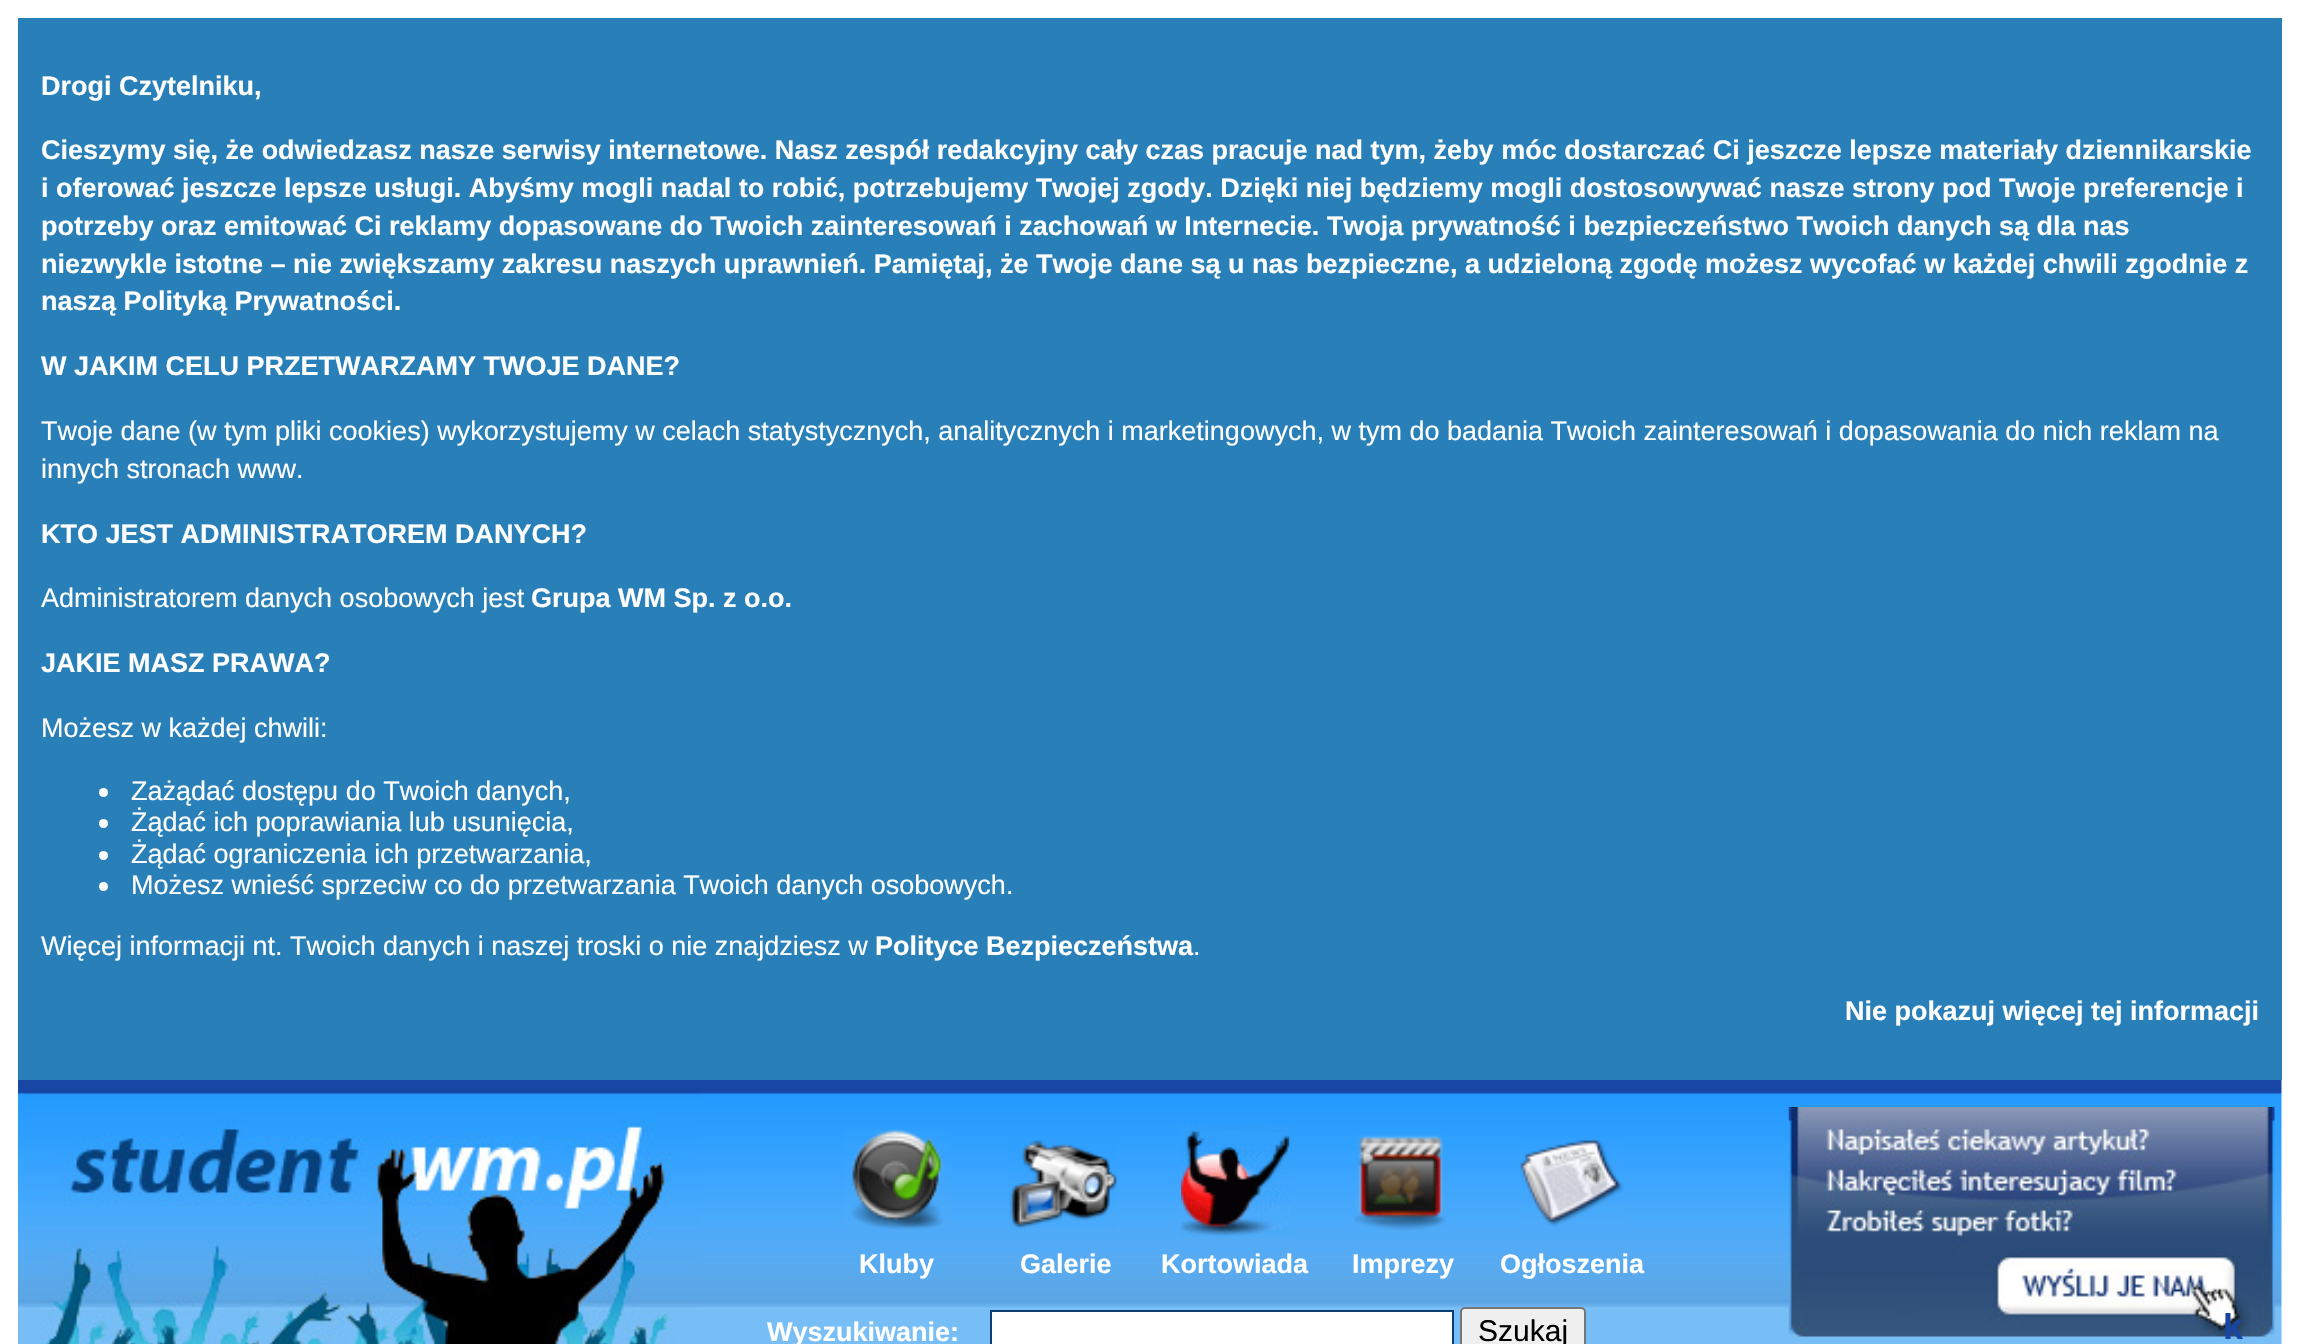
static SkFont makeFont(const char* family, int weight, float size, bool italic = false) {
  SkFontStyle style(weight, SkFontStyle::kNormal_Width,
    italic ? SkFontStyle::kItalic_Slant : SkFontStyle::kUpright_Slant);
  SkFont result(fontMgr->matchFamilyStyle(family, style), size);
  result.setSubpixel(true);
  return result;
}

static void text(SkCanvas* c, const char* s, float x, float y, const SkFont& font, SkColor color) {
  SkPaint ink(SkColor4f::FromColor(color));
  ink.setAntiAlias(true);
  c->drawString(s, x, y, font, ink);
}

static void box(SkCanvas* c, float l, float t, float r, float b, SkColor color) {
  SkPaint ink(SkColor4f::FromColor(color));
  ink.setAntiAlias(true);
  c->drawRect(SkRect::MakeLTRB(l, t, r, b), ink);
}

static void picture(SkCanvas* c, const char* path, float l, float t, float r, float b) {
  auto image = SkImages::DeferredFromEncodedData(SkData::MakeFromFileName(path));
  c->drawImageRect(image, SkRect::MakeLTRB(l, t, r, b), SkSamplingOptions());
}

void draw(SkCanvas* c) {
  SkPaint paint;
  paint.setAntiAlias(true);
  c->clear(0xffffffff);
  box(c, 18, 18, 2282, 1080, 0xff2980b9);
  SkFont face1 = makeFont("Liberation Sans", 700, 27);
  text(c, "Drogi Czytelniku,", 41, 95, face1, 0xffffffff);
  text(c, "Cieszymy się, że odwiedzasz nasze serwisy internetowe. Nasz zespół redakcyjny cały czas pracuje nad tym, żeby móc dostarczać Ci jeszcze lepsze materiały dziennikarskie", 41, 159, face1, 0xffffffff);
  text(c, "i oferować jeszcze lepsze usługi. Abyśmy mogli nadal to robić, potrzebujemy Twojej zgody. Dzięki niej będziemy mogli dostosowywać nasze strony pod Twoje preferencje i", 41, 197, face1, 0xffffffff);
  text(c, "potrzeby oraz emitować Ci reklamy dopasowane do Twoich zainteresowań i zachowań w Internecie. Twoja prywatność i bezpieczeństwo Twoich danych są dla nas", 41, 235, face1, 0xffffffff);
  text(c, "niezwykle istotne – nie zwiększamy zakresu naszych uprawnień. Pamiętaj, że Twoje dane są u nas bezpieczne, a udzieloną zgodę możesz wycofać w każdej chwili zgodnie z", 41, 273, face1, 0xffffffff);
  text(c, "naszą Polityką Prywatności.", 41, 310, face1, 0xffffffff);
  text(c, "W JAKIM CELU PRZETWARZAMY TWOJE DANE?", 41, 375, face1, 0xffffffff);
  SkFont face2 = makeFont("Liberation Sans", 400, 27);
  text(c, "Twoje dane (w tym pliki cookies) wykorzystujemy w celach statystycznych, analitycznych i marketingowych, w tym do badania Twoich zainteresowań i dopasowania do nich reklam na", 41, 440, face2, 0xffffffff);
  text(c, "innych stronach www.", 41, 478, face2, 0xffffffff);
  text(c, "KTO JEST ADMINISTRATOREM DANYCH?", 41, 543, face1, 0xffffffff);
  text(c, "Administratorem danych osobowych jest", 41, 607, face2, 0xffffffff);
  text(c, "Grupa WM Sp. z o.o.", 531, 607, face1, 0xffffffff);
  text(c, "JAKIE MASZ PRAWA?", 41, 672, face1, 0xffffffff);
  text(c, "Możesz w każdej chwili:", 41, 737, face2, 0xffffffff);
  paint.setColor(0xffffffff);
  c->drawCircle(103.5f, 792.5f, 4.5f, paint);
  text(c, "Zażądać dostępu do Twoich danych,", 131, 800, face2, 0xffffffff);
  c->drawCircle(103.5f, 823.5f, 4.5f, paint);
  text(c, "Żądać ich poprawiania lub usunięcia,", 131, 831, face2, 0xffffffff);
  c->drawCircle(103.5f, 855.5f, 4.5f, paint);
  text(c, "Żądać ograniczenia ich przetwarzania,", 131, 863, face2, 0xffffffff);
  c->drawCircle(103.5f, 886.5f, 4.5f, paint);
  text(c, "Możesz wnieść sprzeciw co do przetwarzania Twoich danych osobowych.", 131, 894, face2, 0xffffffff);
  text(c, "Więcej informacji nt. Twoich danych i naszej troski o nie znajdziesz w", 41, 955, face2, 0xffffffff);
  text(c, "Polityce Bezpieczeństwa", 875, 955, face1, 0xffffffff);
  text(c, ".", 1193, 955, face2, 0xffffffff);
  text(c, "Nie pokazuj więcej tej informacji", 1845, 1020, face1, 0xffffffff);
  picture(c, "img_01.png", 18, 1080, 2282, 1344);
  picture(c, "img_02.png", 25, 1092, 700, 1344);
  picture(c, "img_03.png", 844, 1129, 951, 1229);
  text(c, "Kluby", 859, 1273, face1, 0xffffffff);
  picture(c, "img_04.png", 1009, 1140, 1117, 1230);
  text(c, "Galerie", 1020, 1273, face1, 0xffffffff);
  picture(c, "img_05.png", 1181, 1125, 1290, 1236);
  text(c, "Kortowiada", 1161, 1273, face1, 0xffffffff);
  picture(c, "img_06.png", 1354, 1135, 1446, 1231);
  text(c, "Imprezy", 1352, 1273, face1, 0xffffffff);
  picture(c, "img_07.png", 1520, 1140, 1624, 1227);
  text(c, "Ogłoszenia", 1500, 1273, face1, 0xffffffff);
  picture(c, "img_08.png", 1788, 1107, 2275, 1337);
  text(c, "Wyszukiwanie:", 767, 1341, face1, 0xffffffff);
  c->drawRect(SkRect::MakeLTRB(991, 1311, 1453, 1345), paint);
  paint.setStyle(SkPaint::kStroke_Style);
  paint.setStrokeWidth(2);
  paint.setColor(0xff0b3d70);
  c->drawRect(SkRect::MakeLTRB(991, 1311, 1453, 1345), paint);
  paint.setStyle(SkPaint::kFill_Style);
  paint.setColor(0xffefefef);
  c->drawRoundRect(SkRect::MakeLTRB(1461, 1308, 1585, 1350), 4, 4, paint);
  paint.setStyle(SkPaint::kStroke_Style);
  paint.setColor(0xff767676);
  c->drawRoundRect(SkRect::MakeLTRB(1461, 1308, 1585, 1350), 4, 4, paint);
  SkFont face3 = makeFont("Liberation Sans", 400, 30);
  text(c, "Szukaj", 1478, 1341, face3, 0xff000000);
  SkFont face4 = makeFont("Liberation Sans", 700, 36);
  text(c, "k", 2223, 1339, face4, 0xff1846a5);
}
